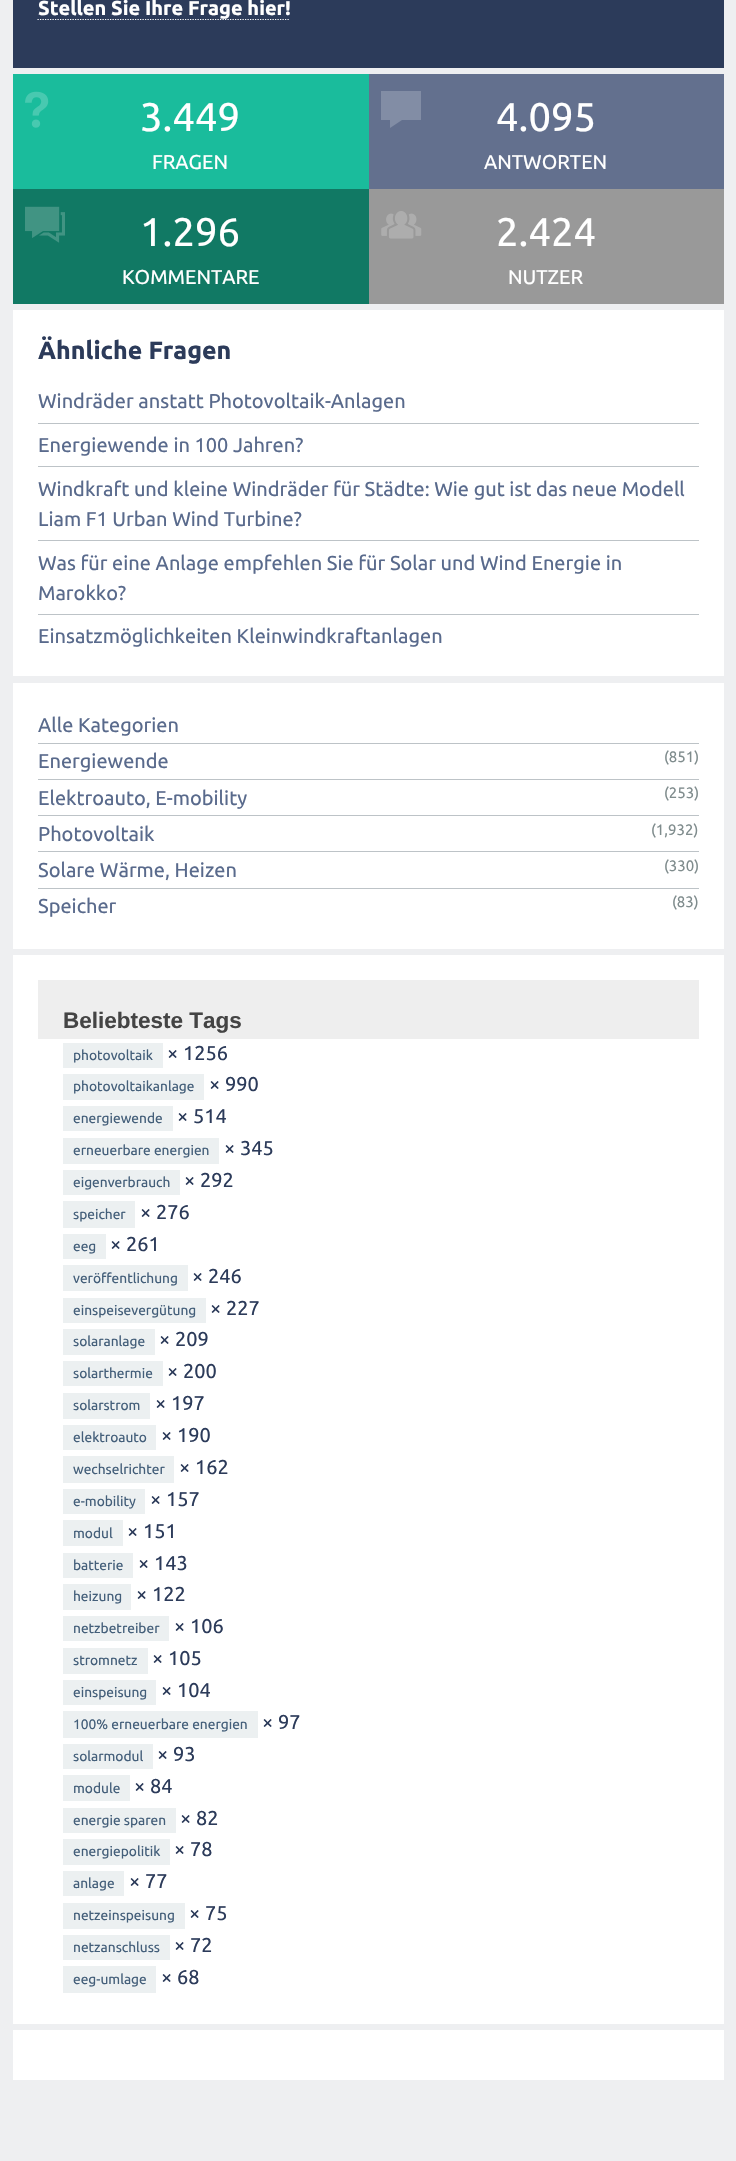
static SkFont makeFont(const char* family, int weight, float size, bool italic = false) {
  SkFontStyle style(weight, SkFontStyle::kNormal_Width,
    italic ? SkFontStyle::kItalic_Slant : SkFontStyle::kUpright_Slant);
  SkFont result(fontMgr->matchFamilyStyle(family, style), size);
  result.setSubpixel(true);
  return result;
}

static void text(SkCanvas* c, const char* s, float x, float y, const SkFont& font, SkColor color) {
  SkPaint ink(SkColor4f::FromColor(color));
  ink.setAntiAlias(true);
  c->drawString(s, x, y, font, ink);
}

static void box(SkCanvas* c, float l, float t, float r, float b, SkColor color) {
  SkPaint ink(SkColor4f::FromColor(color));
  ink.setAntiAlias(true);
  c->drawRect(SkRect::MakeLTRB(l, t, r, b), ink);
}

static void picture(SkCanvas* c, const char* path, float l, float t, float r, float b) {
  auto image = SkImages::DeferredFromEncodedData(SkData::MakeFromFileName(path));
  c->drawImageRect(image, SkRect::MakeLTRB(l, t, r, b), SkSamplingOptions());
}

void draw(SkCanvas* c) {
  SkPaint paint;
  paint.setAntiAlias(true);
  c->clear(0xffeeeff1);
  box(c, 13, 0, 724, 68, 0xff2c3b5a);
  paint.setStyle(SkPaint::kStroke_Style);
  paint.setStrokeWidth(1.2f);
  paint.setColor(0xffffffff);
  paint.setPathEffect(SkDashPathEffect::Make({{1.25f, 1.25f}}, 0));
  c->drawPath(SkPathBuilder().moveTo(37.5f, 19.5f).lineTo(290, 19.5f).detach(), paint);
  paint.setPathEffect(nullptr);
  SkFont face1 = makeFont("Ubuntu", 700, 20);
  text(c, "Stellen Sie Ihre Frage hier!", 38, 15, face1, 0xffffffff);
  box(c, 13, 74, 369, 189, 0xff1abc9c);
  picture(c, "img_01.png", 25, 91, 49, 128);
  SkFont face2 = makeFont("Ubuntu", 400, 40);
  text(c, "3.449", 140, 131, face2, 0xffffffff);
  SkFont face3 = makeFont("Ubuntu", 400, 20);
  text(c, "FRAGEN", 152, 169, face3, 0xffffffff);
  box(c, 369, 74, 724, 189, 0xff63708e);
  paint.setStyle(SkPaint::kFill_Style);
  paint.setColor(0xff828da5);
  c->drawPath(SkPathBuilder().moveTo(381, 120).lineTo(381, 91).lineTo(421, 91).lineTo(421, 120).lineTo(402, 120).lineTo(390, 128).lineTo(390, 120).close().detach(), paint);
  text(c, "4.095", 496, 131, face2, 0xffffffff);
  text(c, "ANTWORTEN", 484, 169, face3, 0xffffffff);
  box(c, 13, 189, 369, 304, 0xff117964);
  picture(c, "img_02.png", 25, 206, 65, 243);
  text(c, "1.296", 140, 246, face2, 0xffffffff);
  text(c, "KOMMENTARE", 122, 284, face3, 0xffffffff);
  box(c, 369, 189, 724, 304, 0xff999999);
  picture(c, "img_03.png", 381, 211, 422, 239);
  text(c, "2.424", 496, 246, face2, 0xffffffff);
  text(c, "NUTZER", 508, 284, face3, 0xffffffff);
  box(c, 13, 310, 724, 676, 0xffffffff);
  SkFont face4 = makeFont("Ubuntu", 700, 25);
  text(c, "Ähnliche Fragen", 38, 359, face4, 0xff2c3b5a);
  box(c, 38, 423, 699, 424, 0xffbdc3c7);
  text(c, "Windräder anstatt Photovoltaik-Anlagen", 38, 408, face3, 0xff596a8c);
  box(c, 38, 466, 699, 467, 0xffbdc3c7);
  text(c, "Energiewende in 100 Jahren?", 38, 452, face3, 0xff596a8c);
  box(c, 38, 540, 699, 541, 0xffbdc3c7);
  text(c, "Windkraft und kleine Windräder für Städte: Wie gut ist das neue Modell", 38, 496, face3, 0xff596a8c);
  text(c, "Liam F1 Urban Wind Turbine?", 38, 526, face3, 0xff596a8c);
  box(c, 38, 614, 699, 615, 0xffbdc3c7);
  text(c, "Was für eine Anlage empfehlen Sie für Solar und Wind Energie in", 38, 570, face3, 0xff596a8c);
  text(c, "Marokko?", 38, 600, face3, 0xff596a8c);
  text(c, "Einsatzmöglichkeiten Kleinwindkraftanlagen", 38, 643, face3, 0xff596a8c);
  box(c, 13, 683, 724, 949, 0xffffffff);
  box(c, 38, 743, 699, 744, 0xffbdc3c7);
  text(c, "Alle Kategorien", 38, 732, face3, 0xff596a8c);
  box(c, 38, 779, 699, 780, 0xffbdc3c7);
  text(c, "Energiewende", 38, 768, face3, 0xff596a8c);
  SkFont face5 = makeFont("Ubuntu", 400, 15);
  text(c, "(851)", 664, 762, face5, 0xff7f8c8d);
  box(c, 38, 815, 699, 816, 0xffbdc3c7);
  text(c, "Elektroauto, E-mobility", 38, 805, face3, 0xff596a8c);
  text(c, "(253)", 664, 798, face5, 0xff7f8c8d);
  box(c, 38, 851, 699, 852, 0xffbdc3c7);
  text(c, "Photovoltaik", 38, 841, face3, 0xff596a8c);
  text(c, "(1,932)", 651, 835, face5, 0xff7f8c8d);
  box(c, 38, 888, 699, 889, 0xffbdc3c7);
  text(c, "Solare Wärme, Heizen", 38, 877, face3, 0xff596a8c);
  text(c, "(330)", 664, 871, face5, 0xff7f8c8d);
  text(c, "Speicher", 38, 913, face3, 0xff596a8c);
  text(c, "(83)", 672, 907, face5, 0xff7f8c8d);
  box(c, 13, 955, 724, 2024, 0xffffffff);
  box(c, 38, 980, 699, 1039, 0xffeeeeee);
  SkFont face6 = makeFont("Liberation Sans", 700, 22.5f);
  text(c, "Beliebteste Tags", 63, 1028, face6, 0xff444444);
  box(c, 63, 1043, 163, 1068, 0xffecf0f1);
  SkFont face7 = makeFont("Ubuntu", 400, 13.75f);
  text(c, "photovoltaik", 73, 1060, face7, 0xff445f7a);
  text(c, "× 1256", 167, 1060, face3, 0xff2c3b5a);
  box(c, 63, 1074, 204, 1100, 0xffecf0f1);
  text(c, "photovoltaikanlage", 73, 1091, face7, 0xff445f7a);
  text(c, "× 990", 209, 1091, face3, 0xff2c3b5a);
  box(c, 63, 1106, 173, 1131, 0xffecf0f1);
  text(c, "energiewende", 73, 1123, face7, 0xff445f7a);
  text(c, "× 514", 177, 1123, face3, 0xff2c3b5a);
  box(c, 63, 1138, 219, 1164, 0xffecf0f1);
  text(c, "erneuerbare energien", 73, 1155, face7, 0xff445f7a);
  text(c, "× 345", 224, 1155, face3, 0xff2c3b5a);
  box(c, 63, 1170, 180, 1195, 0xffecf0f1);
  text(c, "eigenverbrauch", 73, 1187, face7, 0xff445f7a);
  text(c, "× 292", 184, 1187, face3, 0xff2c3b5a);
  box(c, 63, 1201, 135, 1228, 0xffecf0f1);
  text(c, "speicher", 73, 1219, face7, 0xff445f7a);
  text(c, "× 276", 140, 1219, face3, 0xff2c3b5a);
  box(c, 63, 1234, 106, 1259, 0xffecf0f1);
  text(c, "eeg", 73, 1251, face7, 0xff445f7a);
  text(c, "× 261", 110, 1251, face3, 0xff2c3b5a);
  box(c, 63, 1265, 188, 1291, 0xffecf0f1);
  text(c, "veröffentlichung", 73, 1283, face7, 0xff445f7a);
  text(c, "× 246", 192, 1283, face3, 0xff2c3b5a);
  box(c, 63, 1298, 206, 1323, 0xffecf0f1);
  text(c, "einspeisevergütung", 73, 1315, face7, 0xff445f7a);
  text(c, "× 227", 210, 1315, face3, 0xff2c3b5a);
  box(c, 63, 1329, 155, 1355, 0xffecf0f1);
  text(c, "solaranlage", 73, 1346, face7, 0xff445f7a);
  text(c, "× 209", 159, 1346, face3, 0xff2c3b5a);
  box(c, 63, 1361, 163, 1386, 0xffecf0f1);
  text(c, "solarthermie", 73, 1378, face7, 0xff445f7a);
  text(c, "× 200", 167, 1378, face3, 0xff2c3b5a);
  box(c, 63, 1393, 150, 1419, 0xffecf0f1);
  text(c, "solarstrom", 73, 1410, face7, 0xff445f7a);
  text(c, "× 197", 155, 1410, face3, 0xff2c3b5a);
  box(c, 63, 1425, 156, 1450, 0xffecf0f1);
  text(c, "elektroauto", 73, 1442, face7, 0xff445f7a);
  text(c, "× 190", 161, 1442, face3, 0xff2c3b5a);
  box(c, 63, 1456, 174, 1483, 0xffecf0f1);
  text(c, "wechselrichter", 73, 1474, face7, 0xff445f7a);
  text(c, "× 162", 179, 1474, face3, 0xff2c3b5a);
  box(c, 63, 1489, 145, 1514, 0xffecf0f1);
  text(c, "e-mobility", 73, 1506, face7, 0xff445f7a);
  text(c, "× 157", 150, 1506, face3, 0xff2c3b5a);
  box(c, 63, 1520, 123, 1546, 0xffecf0f1);
  text(c, "modul", 73, 1538, face7, 0xff445f7a);
  text(c, "× 151", 127, 1538, face3, 0xff2c3b5a);
  box(c, 63, 1553, 133, 1578, 0xffecf0f1);
  text(c, "batterie", 73, 1570, face7, 0xff445f7a);
  text(c, "× 143", 138, 1570, face3, 0xff2c3b5a);
  box(c, 63, 1584, 131, 1610, 0xffecf0f1);
  text(c, "heizung", 73, 1601, face7, 0xff445f7a);
  text(c, "× 122", 136, 1601, face3, 0xff2c3b5a);
  box(c, 63, 1616, 169, 1641, 0xffecf0f1);
  text(c, "netzbetreiber", 73, 1633, face7, 0xff445f7a);
  text(c, "× 106", 174, 1633, face3, 0xff2c3b5a);
  box(c, 63, 1648, 148, 1674, 0xffecf0f1);
  text(c, "stromnetz", 73, 1665, face7, 0xff445f7a);
  text(c, "× 105", 152, 1665, face3, 0xff2c3b5a);
  box(c, 63, 1680, 156, 1705, 0xffecf0f1);
  text(c, "einspeisung", 73, 1697, face7, 0xff445f7a);
  text(c, "× 104", 161, 1697, face3, 0xff2c3b5a);
  box(c, 63, 1711, 258, 1738, 0xffecf0f1);
  text(c, "100% erneuerbare energien", 73, 1729, face7, 0xff445f7a);
  text(c, "× 97", 262, 1729, face3, 0xff2c3b5a);
  box(c, 63, 1744, 153, 1769, 0xffecf0f1);
  text(c, "solarmodul", 73, 1761, face7, 0xff445f7a);
  text(c, "× 93", 157, 1761, face3, 0xff2c3b5a);
  box(c, 63, 1775, 130, 1801, 0xffecf0f1);
  text(c, "module", 73, 1793, face7, 0xff445f7a);
  text(c, "× 84", 134, 1793, face3, 0xff2c3b5a);
  box(c, 63, 1808, 176, 1833, 0xffecf0f1);
  text(c, "energie sparen", 73, 1825, face7, 0xff445f7a);
  text(c, "× 82", 180, 1825, face3, 0xff2c3b5a);
  box(c, 63, 1839, 170, 1865, 0xffecf0f1);
  text(c, "energiepolitik", 73, 1856, face7, 0xff445f7a);
  text(c, "× 78", 174, 1856, face3, 0xff2c3b5a);
  box(c, 63, 1871, 124, 1896, 0xffecf0f1);
  text(c, "anlage", 73, 1888, face7, 0xff445f7a);
  text(c, "× 77", 129, 1888, face3, 0xff2c3b5a);
  box(c, 63, 1903, 185, 1929, 0xffecf0f1);
  text(c, "netzeinspeisung", 73, 1920, face7, 0xff445f7a);
  text(c, "× 75", 189, 1920, face3, 0xff2c3b5a);
  box(c, 63, 1935, 170, 1960, 0xffecf0f1);
  text(c, "netzanschluss", 73, 1952, face7, 0xff445f7a);
  text(c, "× 72", 174, 1952, face3, 0xff2c3b5a);
  box(c, 63, 1966, 156, 1993, 0xffecf0f1);
  text(c, "eeg-umlage", 73, 1984, face7, 0xff445f7a);
  text(c, "× 68", 161, 1984, face3, 0xff2c3b5a);
  box(c, 13, 2030, 724, 2080, 0xffffffff);
}
